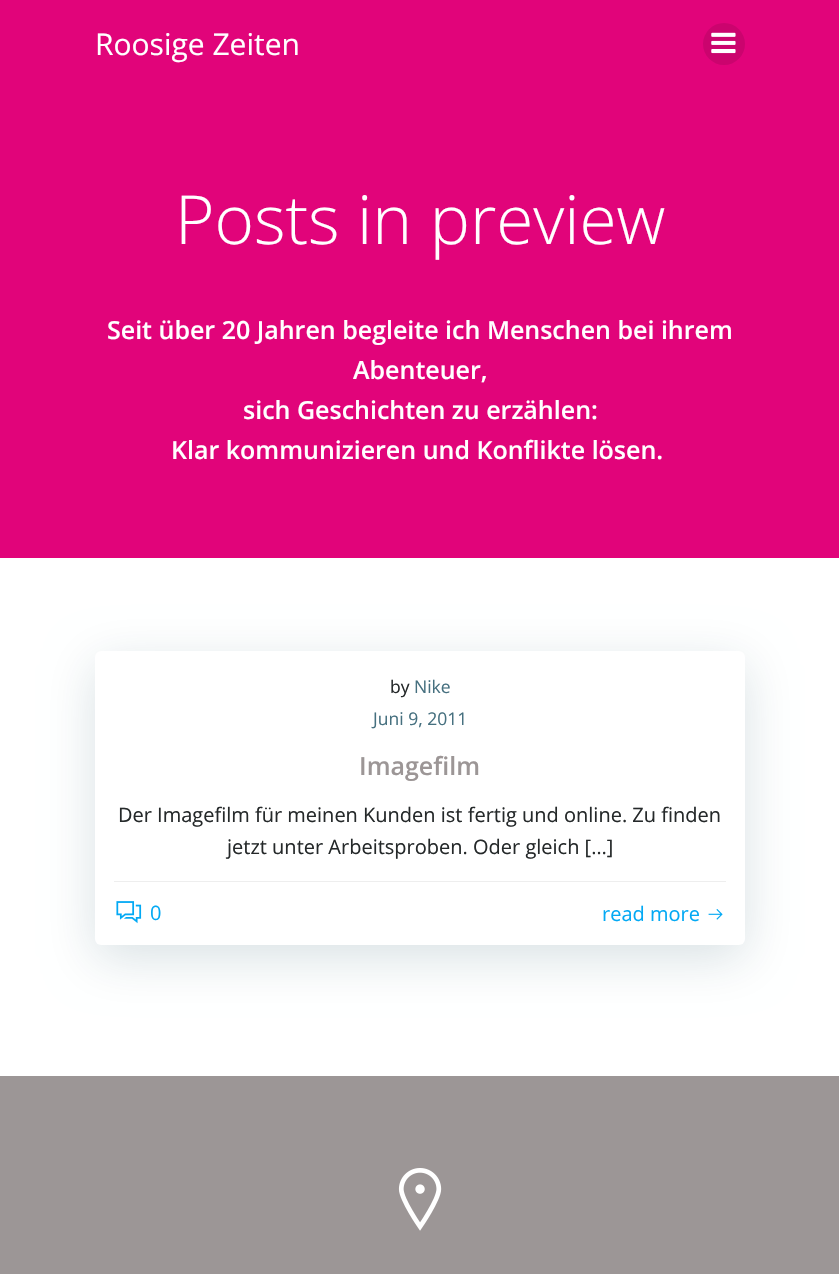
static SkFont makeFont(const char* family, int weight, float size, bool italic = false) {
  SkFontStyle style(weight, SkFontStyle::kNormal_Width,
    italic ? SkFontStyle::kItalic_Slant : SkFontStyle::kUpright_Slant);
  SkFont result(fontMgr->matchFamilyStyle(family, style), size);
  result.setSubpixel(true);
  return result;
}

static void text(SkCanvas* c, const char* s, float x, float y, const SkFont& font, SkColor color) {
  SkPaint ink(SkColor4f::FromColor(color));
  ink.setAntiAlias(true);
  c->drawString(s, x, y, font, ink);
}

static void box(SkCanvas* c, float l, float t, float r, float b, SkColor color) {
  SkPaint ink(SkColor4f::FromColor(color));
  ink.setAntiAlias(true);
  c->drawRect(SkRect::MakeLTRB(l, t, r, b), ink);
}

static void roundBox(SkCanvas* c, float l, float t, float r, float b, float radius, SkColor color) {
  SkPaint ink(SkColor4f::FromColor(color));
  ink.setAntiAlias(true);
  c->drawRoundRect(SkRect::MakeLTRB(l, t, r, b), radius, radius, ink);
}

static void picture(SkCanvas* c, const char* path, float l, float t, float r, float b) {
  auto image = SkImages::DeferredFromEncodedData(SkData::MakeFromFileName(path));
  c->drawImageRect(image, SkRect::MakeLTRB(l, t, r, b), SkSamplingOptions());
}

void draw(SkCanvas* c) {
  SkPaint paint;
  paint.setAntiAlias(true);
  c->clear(0xffffffff);
  box(c, 0, 0, 839, 558, 0xffe1047a);
  SkFont face1 = makeFont("Open Sans", 400, 30);
  text(c, "Roosige Zeiten", 95, 55, face1, 0xffffffff);
  paint.setColor(0xffcb046e);
  c->drawCircle(724, 44, 21, paint);
  picture(c, "img_01.png", 711, 32, 736, 54);
  SkFont face2 = makeFont("Open Sans", 300, 67.5f);
  text(c, "Posts in preview", 175, 244, face2, 0xffffffff);
  SkFont face3 = makeFont("Open Sans", 600, 25);
  text(c, "Seit über 20 Jahren begleite ich Menschen bei ihrem", 107, 339, face3, 0xffffffff);
  text(c, "Abenteuer,", 353, 379, face3, 0xffffffff);
  text(c, "sich Geschichten zu erzählen:", 243, 419, face3, 0xffffffff);
  text(c, "Klar kommunizieren und Konflikte lösen.", 171, 459, face3, 0xffffffff);
  paint.setColor(0x2601334a);
  paint.setMaskFilter(SkMaskFilter::MakeBlur(kNormal_SkBlurStyle, 25));
  c->drawRoundRect(SkRect::MakeLTRB(95, 664, 745, 958), 6, 6, paint);
  paint.setMaskFilter(nullptr);
  roundBox(c, 95, 651, 745, 945, 6, 0xffffffff);
  box(c, 114, 881, 726, 882, 0xffeeeeee);
  SkFont face4 = makeFont("Open Sans", 400, 17.5f);
  text(c, "by", 390, 693, face4, 0xff25292a);
  text(c, "Nike", 414, 693, face4, 0xff46707f);
  text(c, "Juni 9, 2011", 373, 725, face4, 0xff46707f);
  text(c, "Imagefilm", 359, 775, face3, 0xff9c9696);
  SkFont face5 = makeFont("Open Sans", 400, 20);
  text(c, "Der Imagefilm für meinen Kunden ist fertig und online. Zu finden", 118, 822, face5, 0xff25292a);
  text(c, "jetzt unter Arbeitsproben. Oder gleich […]", 227, 854, face5, 0xff25292a);
  picture(c, "img_02.png", 116, 901, 142, 924);
  text(c, "0", 150, 920, face5, 0xff03a9f4);
  text(c, "read more", 602, 921, face5, 0xff03a9f4);
  picture(c, "img_03.png", 708, 909, 723, 920);
  box(c, 0, 1076, 839, 1274, 0xff9c9696);
  picture(c, "img_04.png", 398, 1168, 442, 1231);
}
